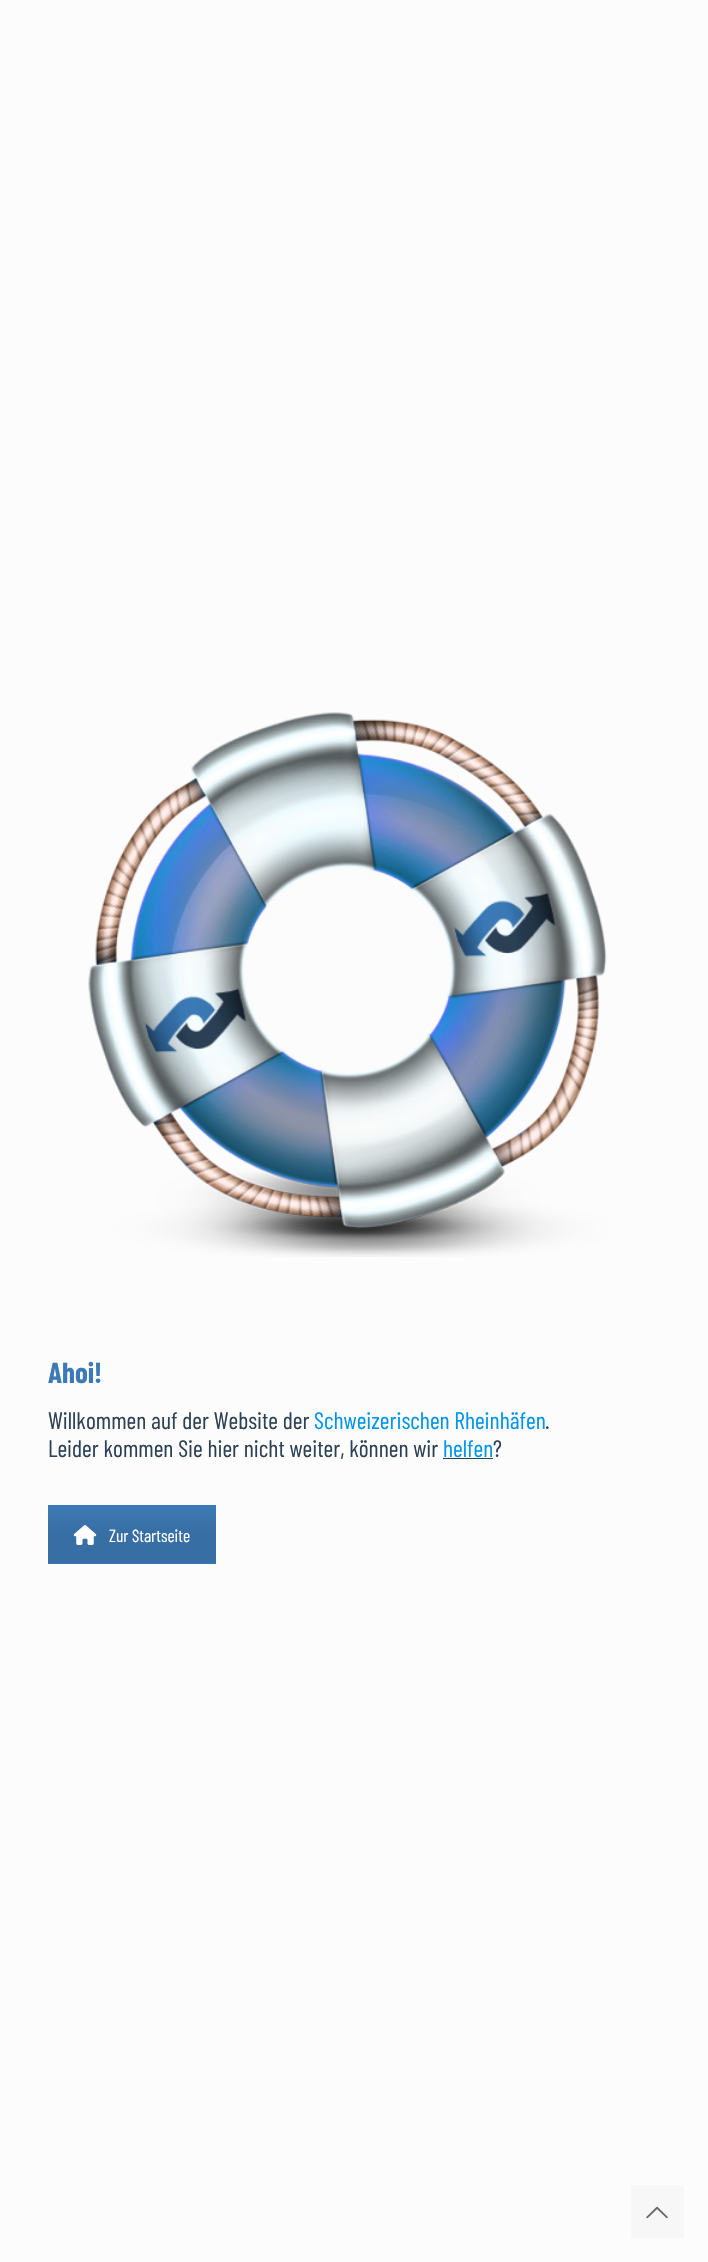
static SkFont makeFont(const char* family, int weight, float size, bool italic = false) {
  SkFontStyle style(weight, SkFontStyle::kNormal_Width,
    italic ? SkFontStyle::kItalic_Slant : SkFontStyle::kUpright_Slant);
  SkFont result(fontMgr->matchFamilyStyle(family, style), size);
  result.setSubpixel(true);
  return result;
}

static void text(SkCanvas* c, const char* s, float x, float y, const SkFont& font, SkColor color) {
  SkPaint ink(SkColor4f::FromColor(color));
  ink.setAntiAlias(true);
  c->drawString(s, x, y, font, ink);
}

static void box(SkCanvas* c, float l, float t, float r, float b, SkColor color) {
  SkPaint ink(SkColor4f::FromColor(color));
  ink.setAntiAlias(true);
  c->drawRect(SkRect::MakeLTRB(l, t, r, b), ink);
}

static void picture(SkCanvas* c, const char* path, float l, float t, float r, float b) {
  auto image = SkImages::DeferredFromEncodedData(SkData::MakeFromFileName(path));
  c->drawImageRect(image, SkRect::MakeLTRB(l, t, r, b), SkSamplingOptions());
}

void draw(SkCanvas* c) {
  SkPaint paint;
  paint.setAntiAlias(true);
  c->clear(0xfffcfcfc);
  picture(c, "img_01.png", 88, 712, 607, 1257);
  SkFont face1 = makeFont("Barlow Condensed", 700, 29);
  text(c, "Ahoi!", 48, 1383, face1, 0xff3d7ab5);
  SkFont face2 = makeFont("Barlow Condensed", 400, 23.75f);
  text(c, "Willkommen auf der Website der", 48, 1429, face2, 0xff2d4155);
  text(c, "Schweizerischen Rheinhäfen", 314, 1429, face2, 0xff0095eb);
  text(c, ".", 545, 1429, face2, 0xff2d4155);
  text(c, "Leider kommen Sie hier nicht weiter, können wir", 48, 1457, face2, 0xff2d4155);
  text(c, "helfen", 443, 1457, face2, 0xff0095eb);
  box(c, 443, 1458, 493, 1459, 0xff2d4155);
  text(c, "?", 493, 1457, face2, 0xff2d4155);
  box(c, 48, 1505, 216, 1564, 0xff3d7ab5);
  {
    const SkColor colors[] = {0xff3d7ab5, 0xff376ea3, 0xff376ea3};
    const float stops[] = {0, 0.5f, 1};
    const SkPoint ends[] = {{215, 1506}, {215, 1563}};
    paint.setShader(SkGradientShader::MakeLinear(ends, colors, stops, 3, SkTileMode::kClamp));
    paint.setAlpha(255);
  }
  c->drawRect(SkRect::MakeLTRB(48, 1510, 216, 1563), paint);
  picture(c, "img_02.png", 73, 1525, 97, 1545);
  SkFont face3 = makeFont("Barlow Condensed", 400, 17.5f);
  text(c, "Zur Startseite", 109, 1542, face3, 0xffffffff);
  box(c, 631, 2185, 684, 2238, 0xfff7f7f7);
  picture(c, "img_03.png", 646, 2206, 668, 2219);
}
